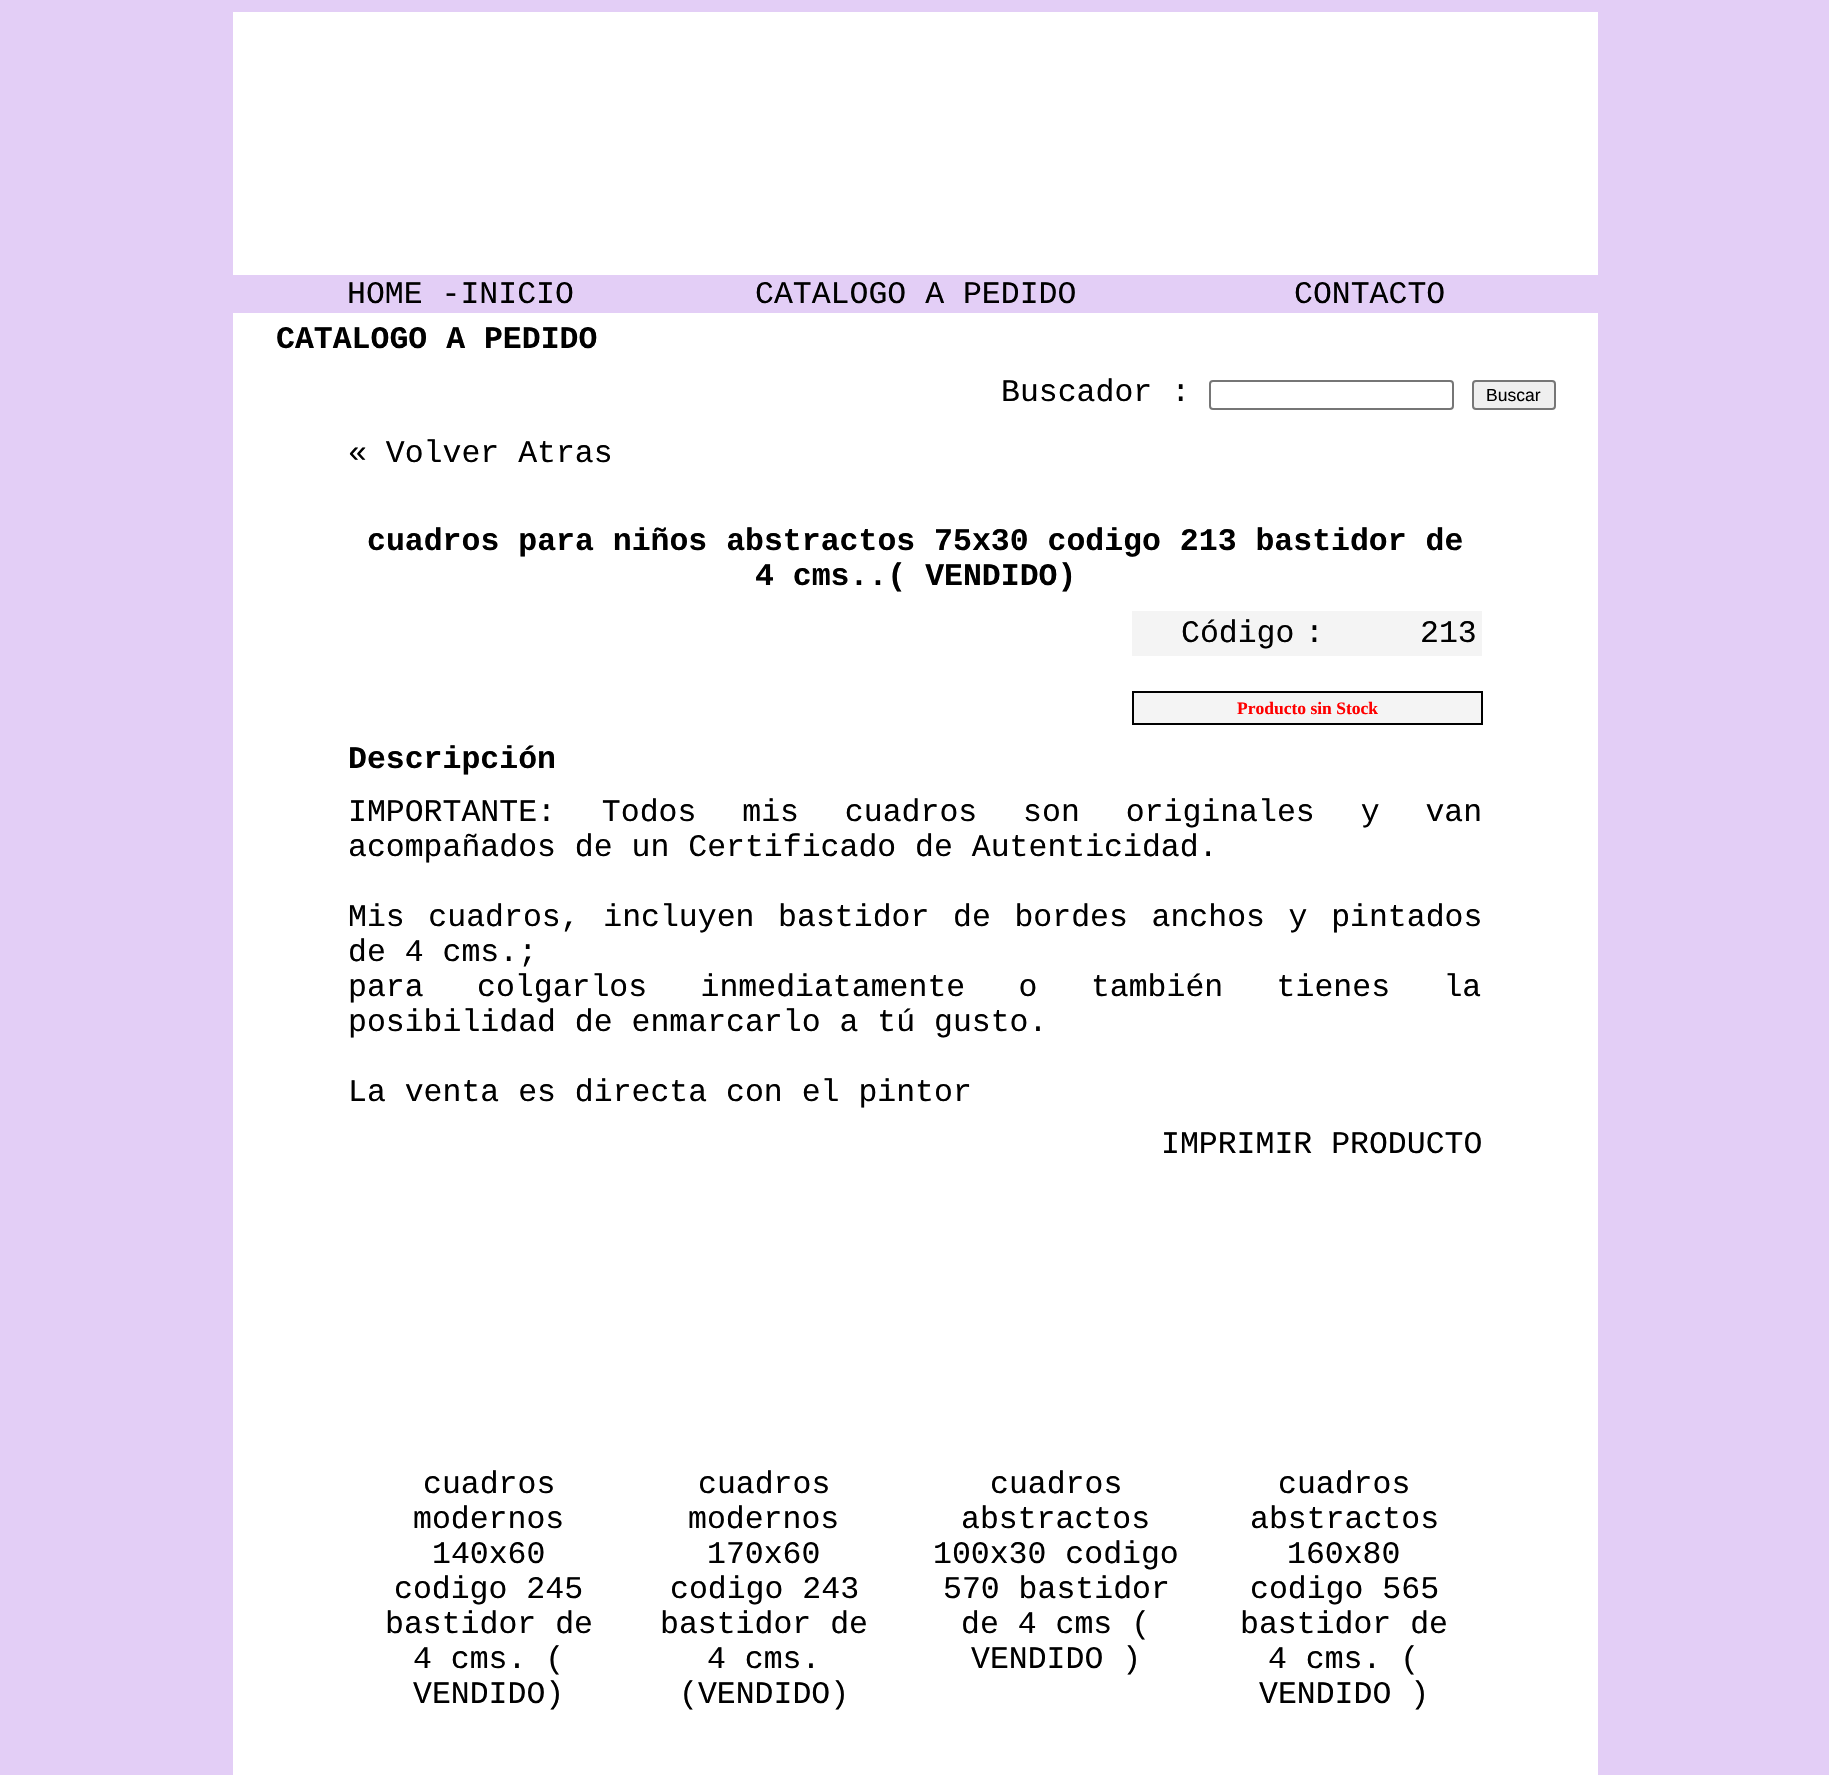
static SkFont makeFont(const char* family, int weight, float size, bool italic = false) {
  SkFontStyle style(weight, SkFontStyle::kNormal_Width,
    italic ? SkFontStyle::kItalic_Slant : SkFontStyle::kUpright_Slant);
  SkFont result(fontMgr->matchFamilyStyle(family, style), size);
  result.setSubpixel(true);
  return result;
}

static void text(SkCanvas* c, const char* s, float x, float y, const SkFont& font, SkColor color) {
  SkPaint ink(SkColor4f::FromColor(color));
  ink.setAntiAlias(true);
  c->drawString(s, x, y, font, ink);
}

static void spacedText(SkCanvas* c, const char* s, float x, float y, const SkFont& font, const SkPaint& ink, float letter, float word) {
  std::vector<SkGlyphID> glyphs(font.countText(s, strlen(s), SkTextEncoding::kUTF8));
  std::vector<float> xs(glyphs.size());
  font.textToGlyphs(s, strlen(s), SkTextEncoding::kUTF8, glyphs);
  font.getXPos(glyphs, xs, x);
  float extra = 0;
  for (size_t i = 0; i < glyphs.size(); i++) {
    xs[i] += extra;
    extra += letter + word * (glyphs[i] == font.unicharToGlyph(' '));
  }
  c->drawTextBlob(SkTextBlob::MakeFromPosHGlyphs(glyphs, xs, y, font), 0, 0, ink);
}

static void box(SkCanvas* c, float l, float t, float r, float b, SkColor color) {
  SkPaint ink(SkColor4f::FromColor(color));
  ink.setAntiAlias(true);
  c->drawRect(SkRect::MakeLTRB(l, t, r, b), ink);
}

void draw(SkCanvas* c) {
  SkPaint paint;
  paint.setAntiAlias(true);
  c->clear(0xffe3cef6);
  box(c, 233, 12, 1598, 275, 0xffffffff);
  SkFont face1 = makeFont("Liberation Mono", 400, 31.5f);
  text(c, "HOME -INICIO", 347, 303, face1, 0xff000000);
  text(c, "CATALOGO A PEDIDO", 755, 303, face1, 0xff000000);
  text(c, "CONTACTO", 1294, 303, face1, 0xff000000);
  box(c, 233, 313, 1598, 1775, 0xffffffff);
  SkFont face2 = makeFont("Liberation Mono", 700, 31.5f);
  text(c, "CATALOGO A PEDIDO", 276, 348, face2, 0xff000000);
  text(c, "Buscador :", 1001, 401, face1, 0xff000000);
  paint.setStyle(SkPaint::kStroke_Style);
  paint.setStrokeWidth(2);
  paint.setColor(0xff767676);
  c->drawRoundRect(SkRect::MakeLTRB(1210, 381, 1453, 409), 3, 3, paint);
  paint.setStyle(SkPaint::kFill_Style);
  paint.setColor(0xffefefef);
  c->drawRoundRect(SkRect::MakeLTRB(1473, 381, 1555, 409), 3, 3, paint);
  paint.setStyle(SkPaint::kStroke_Style);
  paint.setColor(0xff767676);
  c->drawRoundRect(SkRect::MakeLTRB(1473, 381, 1555, 409), 3, 3, paint);
  SkFont face3 = makeFont("Liberation Sans", 400, 17.5f);
  text(c, "Buscar", 1486, 401, face3, 0xff000000);
  text(c, "« Volver Atras", 348, 462, face1, 0xff000000);
  text(c, "cuadros para niños abstractos 75x30 codigo 213 bastidor de", 367, 550, face2, 0xff000000);
  text(c, "4 cms..( VENDIDO)", 755, 585, face2, 0xff000000);
  box(c, 1132, 611, 1482, 656, 0xfff4f4f4);
  text(c, "Código", 1181, 642, face1, 0xff000000);
  text(c, ":", 1305, 642, face1, 0xff000000);
  text(c, "213", 1420, 642, face1, 0xff000000);
  box(c, 1134, 693, 1481, 723, 0xfff4f4f4);
  box(c, 1132, 691, 1482, 693, 0xff000000);
  box(c, 1481, 691, 1483, 725, 0xff000000);
  box(c, 1132, 723, 1482, 725, 0xff000000);
  box(c, 1132, 691, 1134, 725, 0xff000000);
  SkFont face4 = makeFont("Liberation Serif", 700, 17.5f);
  text(c, "Producto sin Stock", 1237, 714, face4, 0xffff0000);
  text(c, "Descripción", 348, 768, face2, 0xff000000);
  paint.setStyle(SkPaint::kFill_Style);
  paint.setColor(0xff000000);
  spacedText(c, "IMPORTANTE: Todos mis cuadros son originales y van", 348, 821, face1, paint, 0, 27);
  text(c, "acompañados de un Certificado de Autenticidad.", 348, 856, face1, 0xff000000);
  spacedText(c, "Mis cuadros, incluyen bastidor de bordes anchos y pintados", 348, 926, face1, paint, 0, 4.75f);
  text(c, "de 4 cms.;", 348, 961, face1, 0xff000000);
  spacedText(c, "para colgarlos inmediatamente o también tienes la", 348, 996, face1, paint, 0, 34.5f);
  text(c, "posibilidad de enmarcarlo a tú gusto.", 348, 1031, face1, 0xff000000);
  text(c, "La venta es directa con el pintor", 348, 1101, face1, 0xff000000);
  text(c, "IMPRIMIR PRODUCTO", 1161, 1153, face1, 0xff000000);
  text(c, "cuadros", 423, 1493, face1, 0xff000000);
  text(c, "modernos", 413, 1528, face1, 0xff000000);
  text(c, "140x60", 432, 1563, face1, 0xff000000);
  text(c, "codigo 245", 394, 1598, face1, 0xff000000);
  text(c, "bastidor de", 385, 1633, face1, 0xff000000);
  text(c, "4 cms. (", 413, 1668, face1, 0xff000000);
  text(c, "VENDIDO)", 413, 1703, face1, 0xff000000);
  text(c, "cuadros", 698, 1493, face1, 0xff000000);
  text(c, "modernos", 688, 1528, face1, 0xff000000);
  text(c, "170x60", 707, 1563, face1, 0xff000000);
  text(c, "codigo 243", 670, 1598, face1, 0xff000000);
  text(c, "bastidor de", 660, 1633, face1, 0xff000000);
  text(c, "4 cms.", 707, 1668, face1, 0xff000000);
  text(c, "(VENDIDO)", 679, 1703, face1, 0xff000000);
  text(c, "cuadros", 990, 1493, face1, 0xff000000);
  text(c, "abstractos", 961, 1528, face1, 0xff000000);
  text(c, "100x30 codigo", 933, 1563, face1, 0xff000000);
  text(c, "570 bastidor", 943, 1598, face1, 0xff000000);
  text(c, "de 4 cms (", 961, 1633, face1, 0xff000000);
  text(c, "VENDIDO )", 971, 1668, face1, 0xff000000);
  text(c, "cuadros", 1278, 1493, face1, 0xff000000);
  text(c, "abstractos", 1250, 1528, face1, 0xff000000);
  text(c, "160x80", 1287, 1563, face1, 0xff000000);
  text(c, "codigo 565", 1250, 1598, face1, 0xff000000);
  text(c, "bastidor de", 1240, 1633, face1, 0xff000000);
  text(c, "4 cms. (", 1268, 1668, face1, 0xff000000);
  text(c, "VENDIDO )", 1259, 1703, face1, 0xff000000);
}
